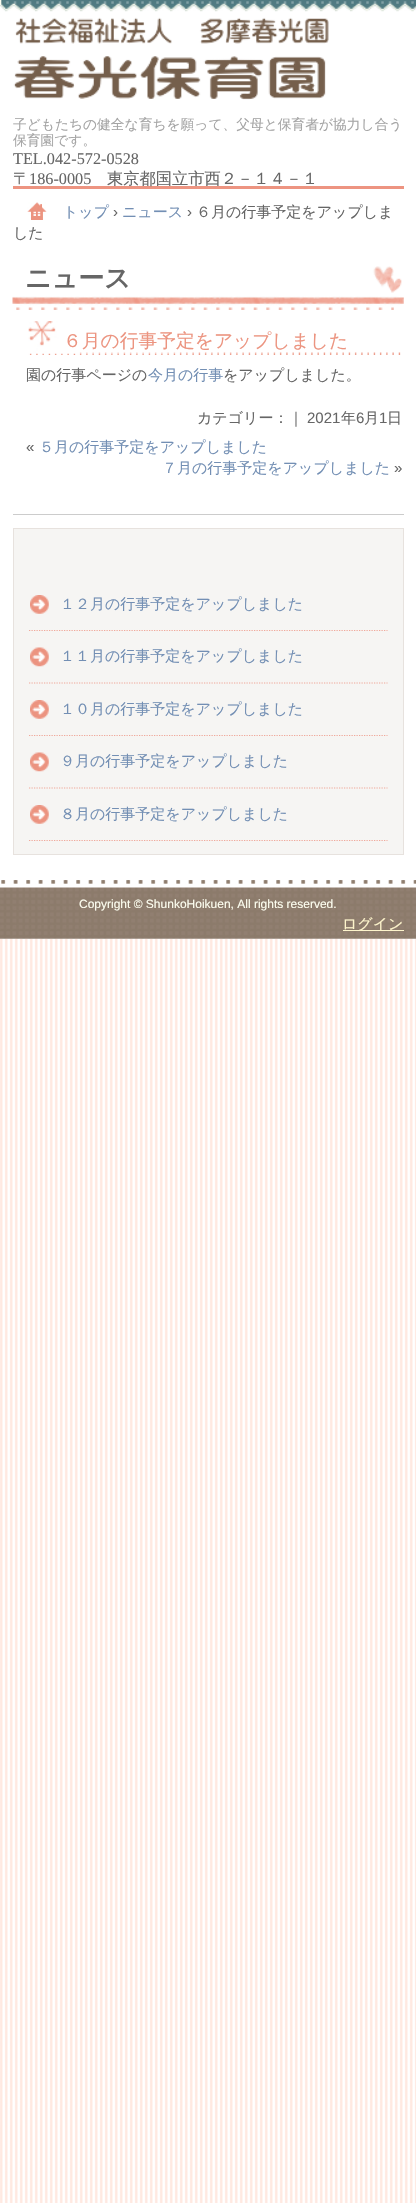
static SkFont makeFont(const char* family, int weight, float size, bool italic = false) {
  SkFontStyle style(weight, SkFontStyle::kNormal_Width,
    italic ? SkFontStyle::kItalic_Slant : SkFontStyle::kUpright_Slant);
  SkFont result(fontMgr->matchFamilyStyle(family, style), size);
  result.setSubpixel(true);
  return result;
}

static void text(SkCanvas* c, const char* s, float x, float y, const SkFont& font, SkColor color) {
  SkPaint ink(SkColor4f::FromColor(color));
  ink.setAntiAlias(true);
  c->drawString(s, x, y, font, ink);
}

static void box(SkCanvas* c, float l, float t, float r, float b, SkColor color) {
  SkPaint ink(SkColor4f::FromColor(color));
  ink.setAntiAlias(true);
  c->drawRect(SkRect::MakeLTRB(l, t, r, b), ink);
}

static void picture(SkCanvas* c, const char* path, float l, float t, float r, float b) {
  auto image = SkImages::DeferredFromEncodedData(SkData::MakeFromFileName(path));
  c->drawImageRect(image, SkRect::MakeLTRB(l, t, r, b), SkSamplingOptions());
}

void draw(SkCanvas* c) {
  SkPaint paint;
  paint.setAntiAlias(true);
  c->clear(0xffffffff);
  picture(c, "img_01.png", 0, 939, 416, 2203);
  picture(c, "img_02.png", 0, 0, 416, 12);
  picture(c, "img_03.png", 13, 17, 329, 100);
  SkFont face1 = makeFont("WenQuanYi Zen Hei", 500, 13.75f);
  text(c, "子どもたちの健全な育ちを願って、父母と保育者が協力し合う", 13, 129, face1, 0xffa4a4a4);
  text(c, "保育園です。", 13, 145, face1, 0xffa4a4a4);
  SkFont face2 = makeFont("Liberation Serif", 400, 16.25f);
  text(c, "TEL.042-572-0528", 13, 164, face2, 0xff666666);
  SkFont face3 = makeFont("WenQuanYi Zen Hei", 500, 16.25f);
  text(c, "〒", 13, 184, face3, 0xff666666);
  text(c, "186-0005", 29, 184, face2, 0xff666666);
  box(c, 13, 186, 404, 189, 0xffed9481);
  text(c, "東京都国立市西２－１４－１", 107, 184, face3, 0xff666666);
  picture(c, "img_04.png", 27, 202, 47, 220);
  SkFont face4 = makeFont("WenQuanYi Zen Hei", 500, 15);
  text(c, "トップ", 63, 217, face4, 0xff738fb4);
  SkFont face5 = makeFont("Liberation Sans", 400, 15);
  text(c, "›", 113, 217, face5, 0xff666666);
  text(c, "ニュース", 122, 217, face4, 0xff738fb4);
  text(c, "›", 187, 217, face5, 0xff666666);
  text(c, "６月の行事予定をアップしま", 196, 217, face4, 0xff666666);
  text(c, "した", 13, 238, face4, 0xff666666);
  picture(c, "img_05.png", 12, 266, 404, 310);
  SkFont face6 = makeFont("WenQuanYi Zen Hei", 700, 26);
  text(c, "ニュース", 25, 287, face6, 0xff666666);
  box(c, 13, 514, 404, 515, 0xffcccccc);
  picture(c, "img_06.png", 28, 321, 401, 355);
  SkFont face7 = makeFont("WenQuanYi Zen Hei", 500, 18.75f);
  text(c, "６月の行事予定をアップしました", 63, 347, face7, 0xffec9480);
  text(c, "園の行事ページの", 26, 380, face4, 0xff666666);
  text(c, "今月の行事", 148, 380, face4, 0xff738fb4);
  text(c, "をアップしました。", 223, 380, face4, 0xff666666);
  text(c, "カテゴリー：｜", 197, 423, face4, 0xff666666);
  text(c, "2021", 307, 423, face5, 0xff666666);
  text(c, "年", 341, 423, face4, 0xff666666);
  text(c, "6", 356, 423, face5, 0xff666666);
  text(c, "月", 364, 423, face4, 0xff666666);
  text(c, "1", 379, 423, face5, 0xff666666);
  text(c, "日", 387, 423, face4, 0xff666666);
  text(c, "«", 26, 452, face5, 0xff666666);
  text(c, "５月の行事予定をアップしました", 39, 452, face4, 0xff738fb4);
  text(c, "７月の行事予定をアップしました", 162, 473, face4, 0xff738fb4);
  text(c, "»", 394, 473, face5, 0xff666666);
  paint.setColor(0xfff6f5f3);
  c->drawRect(SkRect::MakeLTRB(13.5f, 528.5f, 403.5f, 854.5f), paint);
  paint.setStyle(SkPaint::kStroke_Style);
  paint.setStrokeWidth(1);
  paint.setColor(0xffe7e2de);
  c->drawRect(SkRect::MakeLTRB(13.5f, 528.5f, 403.5f, 854.5f), paint);
  picture(c, "img_07.png", 30, 595, 49, 614);
  paint.setStrokeWidth(1.2f);
  paint.setColor(0xfff0a89a);
  paint.setPathEffect(SkDashPathEffect::Make({{1.25f, 1.25f}}, 0));
  c->drawPath(SkPathBuilder().moveTo(29, 630.5f).lineTo(387.5f, 630.5f).detach(), paint);
  paint.setPathEffect(nullptr);
  text(c, "１２月の行事予定をアップしました", 60, 609, face4, 0xff738fb4);
  box(c, 29, 631, 388, 632, 0xfff6f5f3);
  picture(c, "img_08.png", 30, 647, 49, 667);
  paint.setPathEffect(SkDashPathEffect::Make({{1.25f, 1.25f}}, 0));
  c->drawPath(SkPathBuilder().moveTo(29, 683).lineTo(387.5f, 683).detach(), paint);
  paint.setPathEffect(nullptr);
  text(c, "１１月の行事予定をアップしました", 60, 661, face4, 0xff738fb4);
  picture(c, "img_07.png", 30, 700, 49, 719);
  paint.setPathEffect(SkDashPathEffect::Make({{1.25f, 1.25f}}, 0));
  c->drawPath(SkPathBuilder().moveTo(29, 735.5f).lineTo(387.5f, 735.5f).detach(), paint);
  paint.setPathEffect(nullptr);
  text(c, "１０月の行事予定をアップしました", 60, 714, face4, 0xff738fb4);
  box(c, 29, 736, 388, 737, 0xfff6f5f3);
  picture(c, "img_08.png", 30, 752, 49, 772);
  paint.setPathEffect(SkDashPathEffect::Make({{1.25f, 1.25f}}, 0));
  c->drawPath(SkPathBuilder().moveTo(29, 788).lineTo(387.5f, 788).detach(), paint);
  paint.setPathEffect(nullptr);
  text(c, "９月の行事予定をアップしました", 60, 766, face4, 0xff738fb4);
  picture(c, "img_07.png", 30, 805, 49, 824);
  paint.setPathEffect(SkDashPathEffect::Make({{1.25f, 1.25f}}, 0));
  c->drawPath(SkPathBuilder().moveTo(29, 840.5f).lineTo(387.5f, 840.5f).detach(), paint);
  paint.setPathEffect(nullptr);
  text(c, "８月の行事予定をアップしました", 60, 819, face4, 0xff738fb4);
  picture(c, "img_09.png", 0, 880, 416, 939);
  SkFont face8 = makeFont("Liberation Sans", 400, 12);
  text(c, "Copyright © ShunkoHoikuen, All rights reserved.", 79, 908, face8, 0xfffefff1);
  box(c, 343, 930, 404, 931, 0xfffef5cc);
  text(c, "ログイン", 342, 929, face4, 0xfffef5cc);
}
